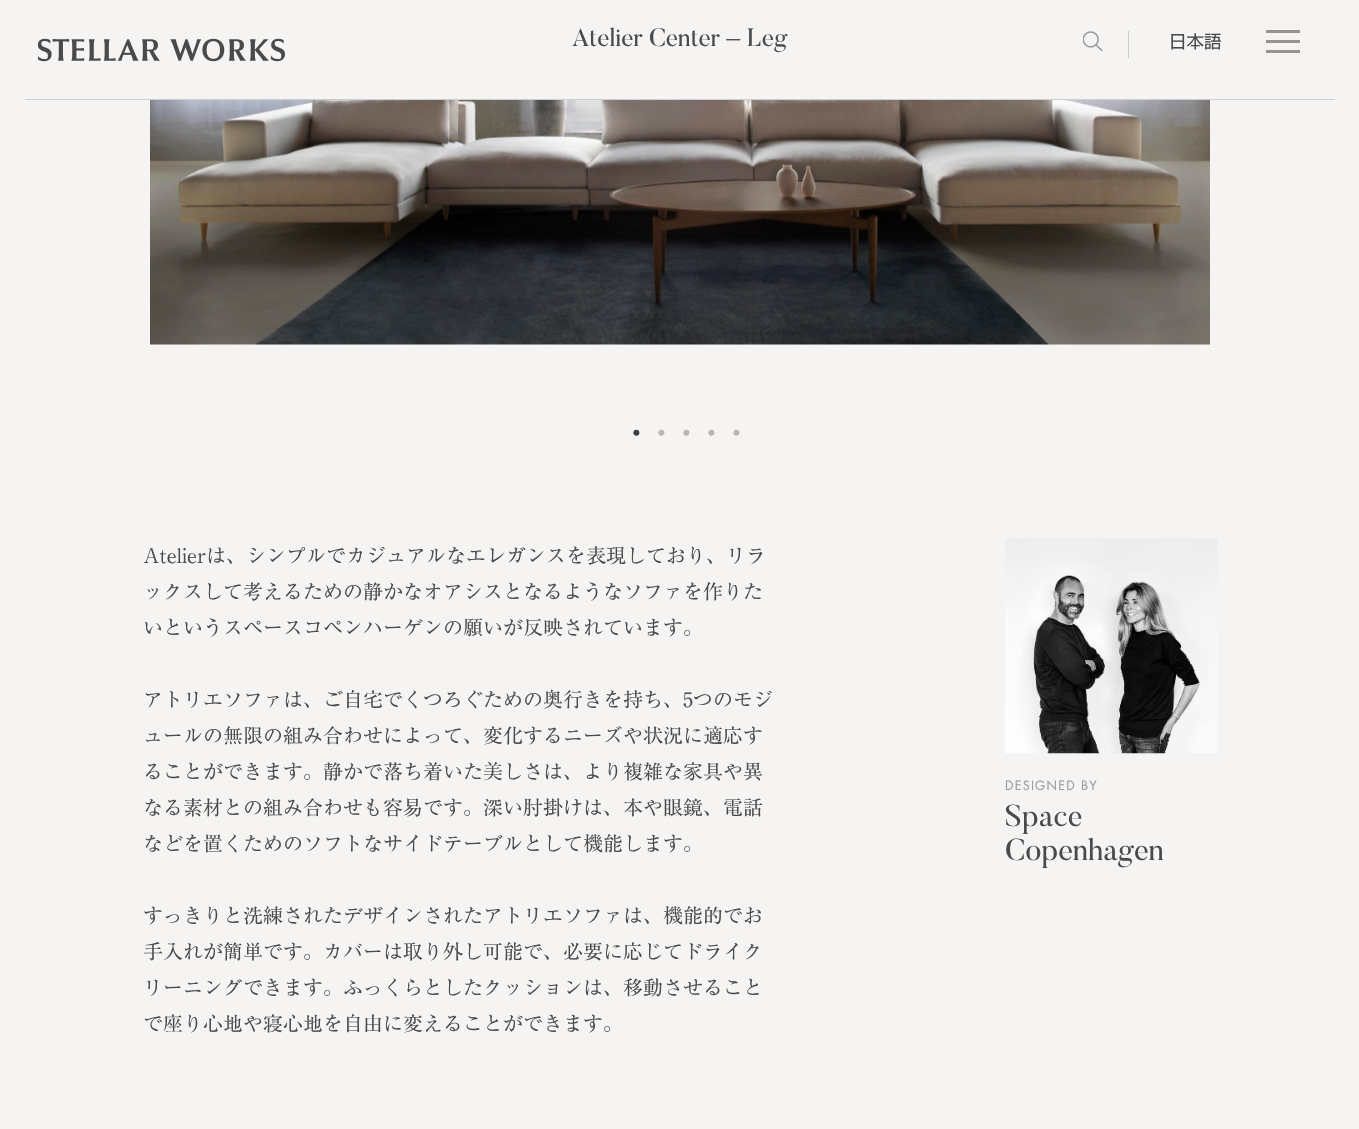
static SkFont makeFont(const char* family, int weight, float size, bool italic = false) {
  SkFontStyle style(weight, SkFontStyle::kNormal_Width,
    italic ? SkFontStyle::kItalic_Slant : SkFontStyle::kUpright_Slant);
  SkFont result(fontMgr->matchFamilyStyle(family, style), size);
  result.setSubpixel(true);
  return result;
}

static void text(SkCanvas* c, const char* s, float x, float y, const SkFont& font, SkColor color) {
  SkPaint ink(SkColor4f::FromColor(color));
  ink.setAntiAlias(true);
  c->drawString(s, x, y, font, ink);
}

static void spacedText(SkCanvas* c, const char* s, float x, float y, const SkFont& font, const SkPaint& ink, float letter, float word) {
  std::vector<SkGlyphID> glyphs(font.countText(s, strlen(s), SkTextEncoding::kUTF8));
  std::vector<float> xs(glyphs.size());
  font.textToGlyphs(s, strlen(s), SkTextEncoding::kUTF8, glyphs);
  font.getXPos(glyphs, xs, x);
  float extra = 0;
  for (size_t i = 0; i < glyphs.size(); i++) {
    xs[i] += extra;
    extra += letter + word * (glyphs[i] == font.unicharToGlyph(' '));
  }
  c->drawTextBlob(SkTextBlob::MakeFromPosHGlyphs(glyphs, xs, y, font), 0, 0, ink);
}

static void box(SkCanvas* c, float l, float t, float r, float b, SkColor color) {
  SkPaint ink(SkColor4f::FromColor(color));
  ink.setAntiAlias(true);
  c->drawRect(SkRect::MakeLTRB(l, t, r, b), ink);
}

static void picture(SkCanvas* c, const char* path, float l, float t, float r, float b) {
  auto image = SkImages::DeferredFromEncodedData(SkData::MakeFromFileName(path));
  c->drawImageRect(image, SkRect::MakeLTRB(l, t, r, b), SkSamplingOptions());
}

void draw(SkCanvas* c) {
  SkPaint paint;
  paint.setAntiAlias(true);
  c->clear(0xfff5f4f2);
  SkFont face1 = makeFont("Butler", 400, 25);
  text(c, "Atelier Center – Leg", 572, 46, face1, 0xff4a4a4a);
  picture(c, "img_01.png", 150, 100, 1210, 345);
  SkFont face2 = makeFont("Liberation Serif", 400, 25);
  text(c, "•", 632, 441, face2, 0xff3d3d3d);
  text(c, "•", 657, 441, face2, 0xffb8b7b6);
  text(c, "•", 682, 441, face2, 0xffb8b7b6);
  text(c, "•", 707, 441, face2, 0xffb8b7b6);
  text(c, "•", 732, 441, face2, 0xffb8b7b6);
  SkFont face3 = makeFont("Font", 400, 20);
  text(c, "Atelierは、シンプルでカジュアルなエレガンスを表現しており、リラ", 143, 563, face3, 0xff4a4a4a);
  text(c, "ックスして考えるための静かなオアシスとなるようなソファを作りた", 143, 599, face3, 0xff4a4a4a);
  text(c, "いというスペースコペンハーゲンの願いが反映されています。", 143, 635, face3, 0xff4a4a4a);
  text(c, "アトリエソファは、ご自宅でくつろぐための奥行きを持ち、5つのモジ", 143, 707, face3, 0xff4a4a4a);
  text(c, "ュールの無限の組み合わせによって、変化するニーズや状況に適応す", 143, 743, face3, 0xff4a4a4a);
  text(c, "ることができます。静かで落ち着いた美しさは、より複雑な家具や異", 143, 779, face3, 0xff4a4a4a);
  text(c, "なる素材との組み合わせも容易です。深い肘掛けは、本や眼鏡、電話", 143, 815, face3, 0xff4a4a4a);
  text(c, "などを置くためのソフトなサイドテーブルとして機能します。", 143, 851, face3, 0xff4a4a4a);
  text(c, "すっきりと洗練されたデザインされたアトリエソファは、機能的でお", 143, 923, face3, 0xff4a4a4a);
  text(c, "手入れが簡単です。カバーは取り外し可能で、必要に応じてドライク", 143, 959, face3, 0xff4a4a4a);
  text(c, "リーニングできます。ふっくらとしたクッションは、移動させること", 143, 995, face3, 0xff4a4a4a);
  text(c, "で座り心地や寝心地を自由に変えることができます。", 143, 1031, face3, 0xff4a4a4a);
  picture(c, "img_02.png", 1005, 538, 1218, 754);
  SkFont face4 = makeFont("Futura", 400, 12.5f);
  paint.setColor(0xff9b9b9b);
  spacedText(c, "DESIGNED BY", 1005, 790, face4, paint, 1.25f, 0);
  SkFont face5 = makeFont("Butler", 400, 30);
  text(c, "Space", 1005, 826, face5, 0xff4a4a4a);
  text(c, "Copenhagen", 1005, 860, face5, 0xff4a4a4a);
  picture(c, "img_03.png", 38, 38, 285, 62);
  box(c, 1128, 31, 1129, 58, 0xffcacac7);
  picture(c, "img_04.png", 1083, 31, 1103, 51);
  SkFont face6 = makeFont("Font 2", 400, 17.5f);
  text(c, "日本語", 1169, 48, face6, 0xff4a4a4a);
  box(c, 1266, 40, 1300, 43, 0xff959493);
  box(c, 1266, 30, 1300, 33, 0xff959493);
  box(c, 1266, 50, 1300, 53, 0xff959493);
  box(c, 25, 99, 1335, 100, 0xffcdcdcd);
}
